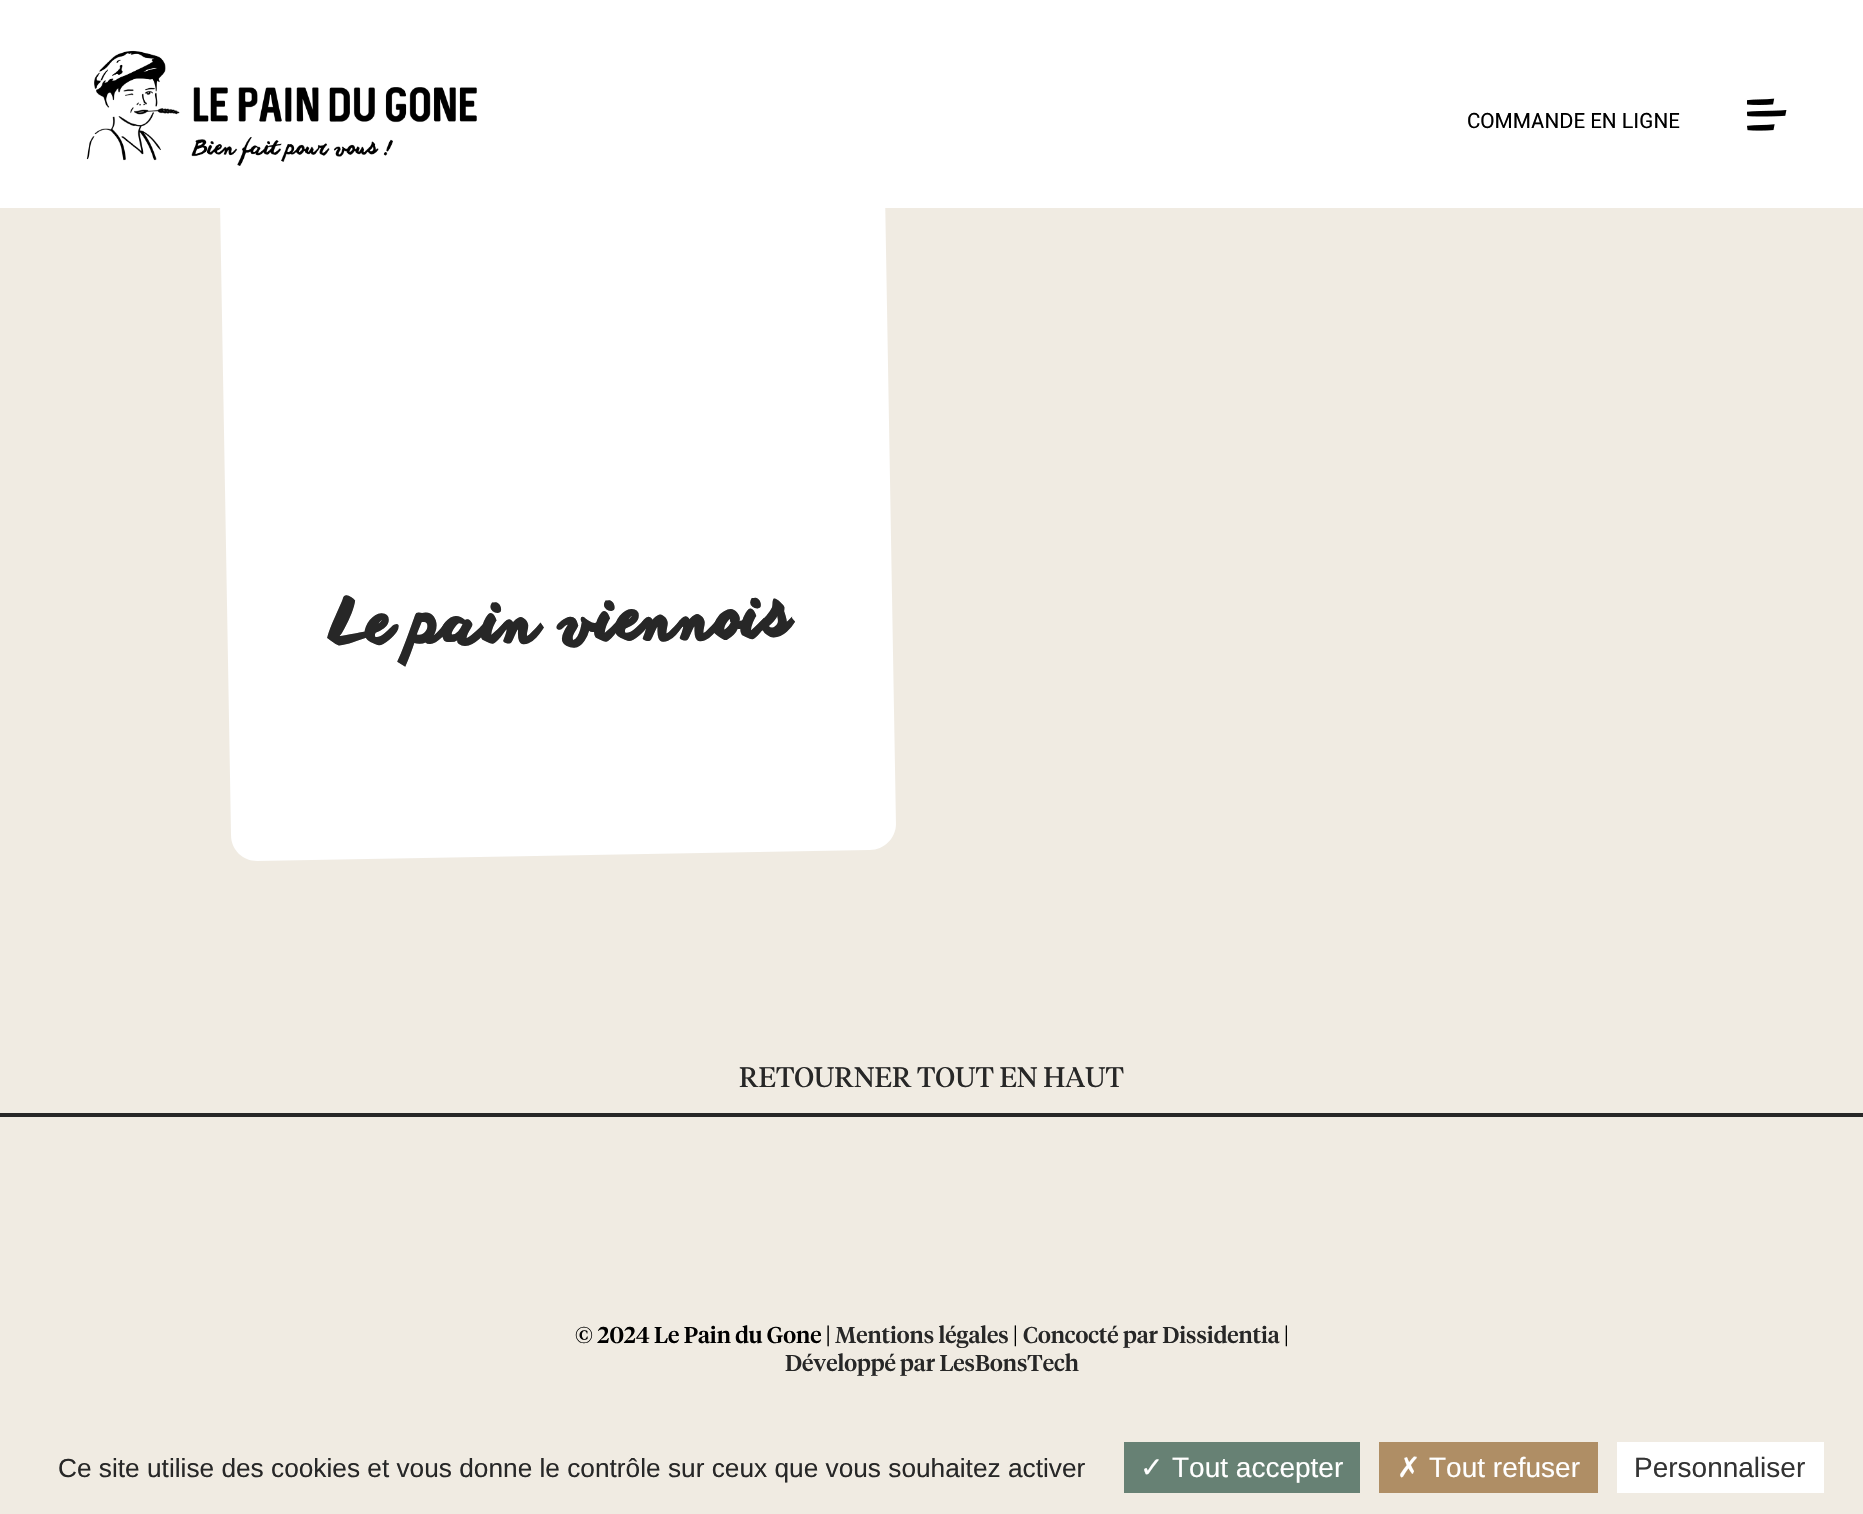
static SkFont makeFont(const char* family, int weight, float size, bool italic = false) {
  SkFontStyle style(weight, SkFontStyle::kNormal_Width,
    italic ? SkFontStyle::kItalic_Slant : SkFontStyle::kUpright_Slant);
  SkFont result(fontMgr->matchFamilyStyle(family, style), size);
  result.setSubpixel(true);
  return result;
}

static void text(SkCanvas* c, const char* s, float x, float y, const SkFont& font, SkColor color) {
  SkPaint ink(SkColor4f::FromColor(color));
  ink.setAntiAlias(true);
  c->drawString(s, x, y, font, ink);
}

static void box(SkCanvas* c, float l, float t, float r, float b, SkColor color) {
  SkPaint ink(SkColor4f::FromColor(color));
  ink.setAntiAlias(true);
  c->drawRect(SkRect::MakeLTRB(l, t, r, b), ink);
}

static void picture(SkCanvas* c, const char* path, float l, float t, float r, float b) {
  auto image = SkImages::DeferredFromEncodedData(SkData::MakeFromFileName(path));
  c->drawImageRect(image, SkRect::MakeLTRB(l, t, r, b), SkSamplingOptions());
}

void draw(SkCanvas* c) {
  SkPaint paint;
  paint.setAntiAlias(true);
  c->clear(0xfff0ebe2);
  paint.setColor(0xffffffff);
  c->drawPath(SkPathBuilder().moveTo(241, -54).lineTo(854, -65).cubicTo(868, -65, 880, -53, 881, -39).lineTo(896, 824).cubicTo(896, 838, 884, 850, 870, 850).lineTo(257, 861).cubicTo(243, 861, 231, 850, 231, 835).lineTo(216, -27).cubicTo(215, -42, 227, -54, 241, -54).close().detach(), paint);
  box(c, 0, 0, 1863, 208, 0xffffffff);
  picture(c, "img_01.png", 86, 50, 477, 166);
  SkFont face1 = makeFont("Roboto", 400, 21);
  text(c, "COMMANDE EN LIGNE", 1467, 128, face1, 0xff000000);
  picture(c, "img_02.png", 1747, 98, 1787, 131);
  SkFont face2 = makeFont("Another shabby", 700, 61.25f);
  c->save();
  c->rotate(-1, 330, 646);
  text(c, "Le pain viennois", 330, 646, face2, 0xff272727);
  c->restore();
  SkFont face3 = makeFont("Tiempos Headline", 400, 28);
  text(c, "RETOURNER TOUT EN HAUT", 739, 1087, face3, 0xff272727);
  box(c, 0, 1113, 1863, 1117, 0xff272727);
  SkFont face4 = makeFont("Tiempos Headline", 500, 22.75f);
  text(c, "© 2024 Le Pain du Gone |", 575, 1343, face4, 0xff000000);
  text(c, "Mentions légales", 835, 1343, face4, 0xff272727);
  text(c, "|", 1013, 1343, face4, 0xff000000);
  text(c, "Concocté par Dissidentia", 1023, 1343, face4, 0xff272727);
  text(c, "|", 1284, 1343, face4, 0xff000000);
  text(c, "Développé par LesBonsTech", 785, 1371, face4, 0xff272727);
  SkFont face5 = makeFont("Liberation Sans", 400, 26.25f);
  text(c, "Ce site utilise des cookies et vous donne le contrôle sur ceux que vous souhaitez activer", 58, 1477, face5, 0xff272727);
  box(c, 1124, 1442, 1360, 1493, 0xff678174);
  SkFont face6 = makeFont("DejaVu Sans", 400, 28);
  text(c, "✓", 1140, 1477, face6, 0xffffffff);
  SkFont face7 = makeFont("Liberation Sans", 400, 28);
  text(c, "Tout accepter", 1172, 1477, face7, 0xffffffff);
  box(c, 1379, 1442, 1598, 1493, 0xffaf8e65);
  text(c, "✗", 1397, 1477, face6, 0xffffffff);
  text(c, "Tout refuser", 1429, 1477, face7, 0xffffffff);
  box(c, 1617, 1442, 1824, 1493, 0xffffffff);
  text(c, "Personnaliser", 1634, 1477, face7, 0xff333333);
}
